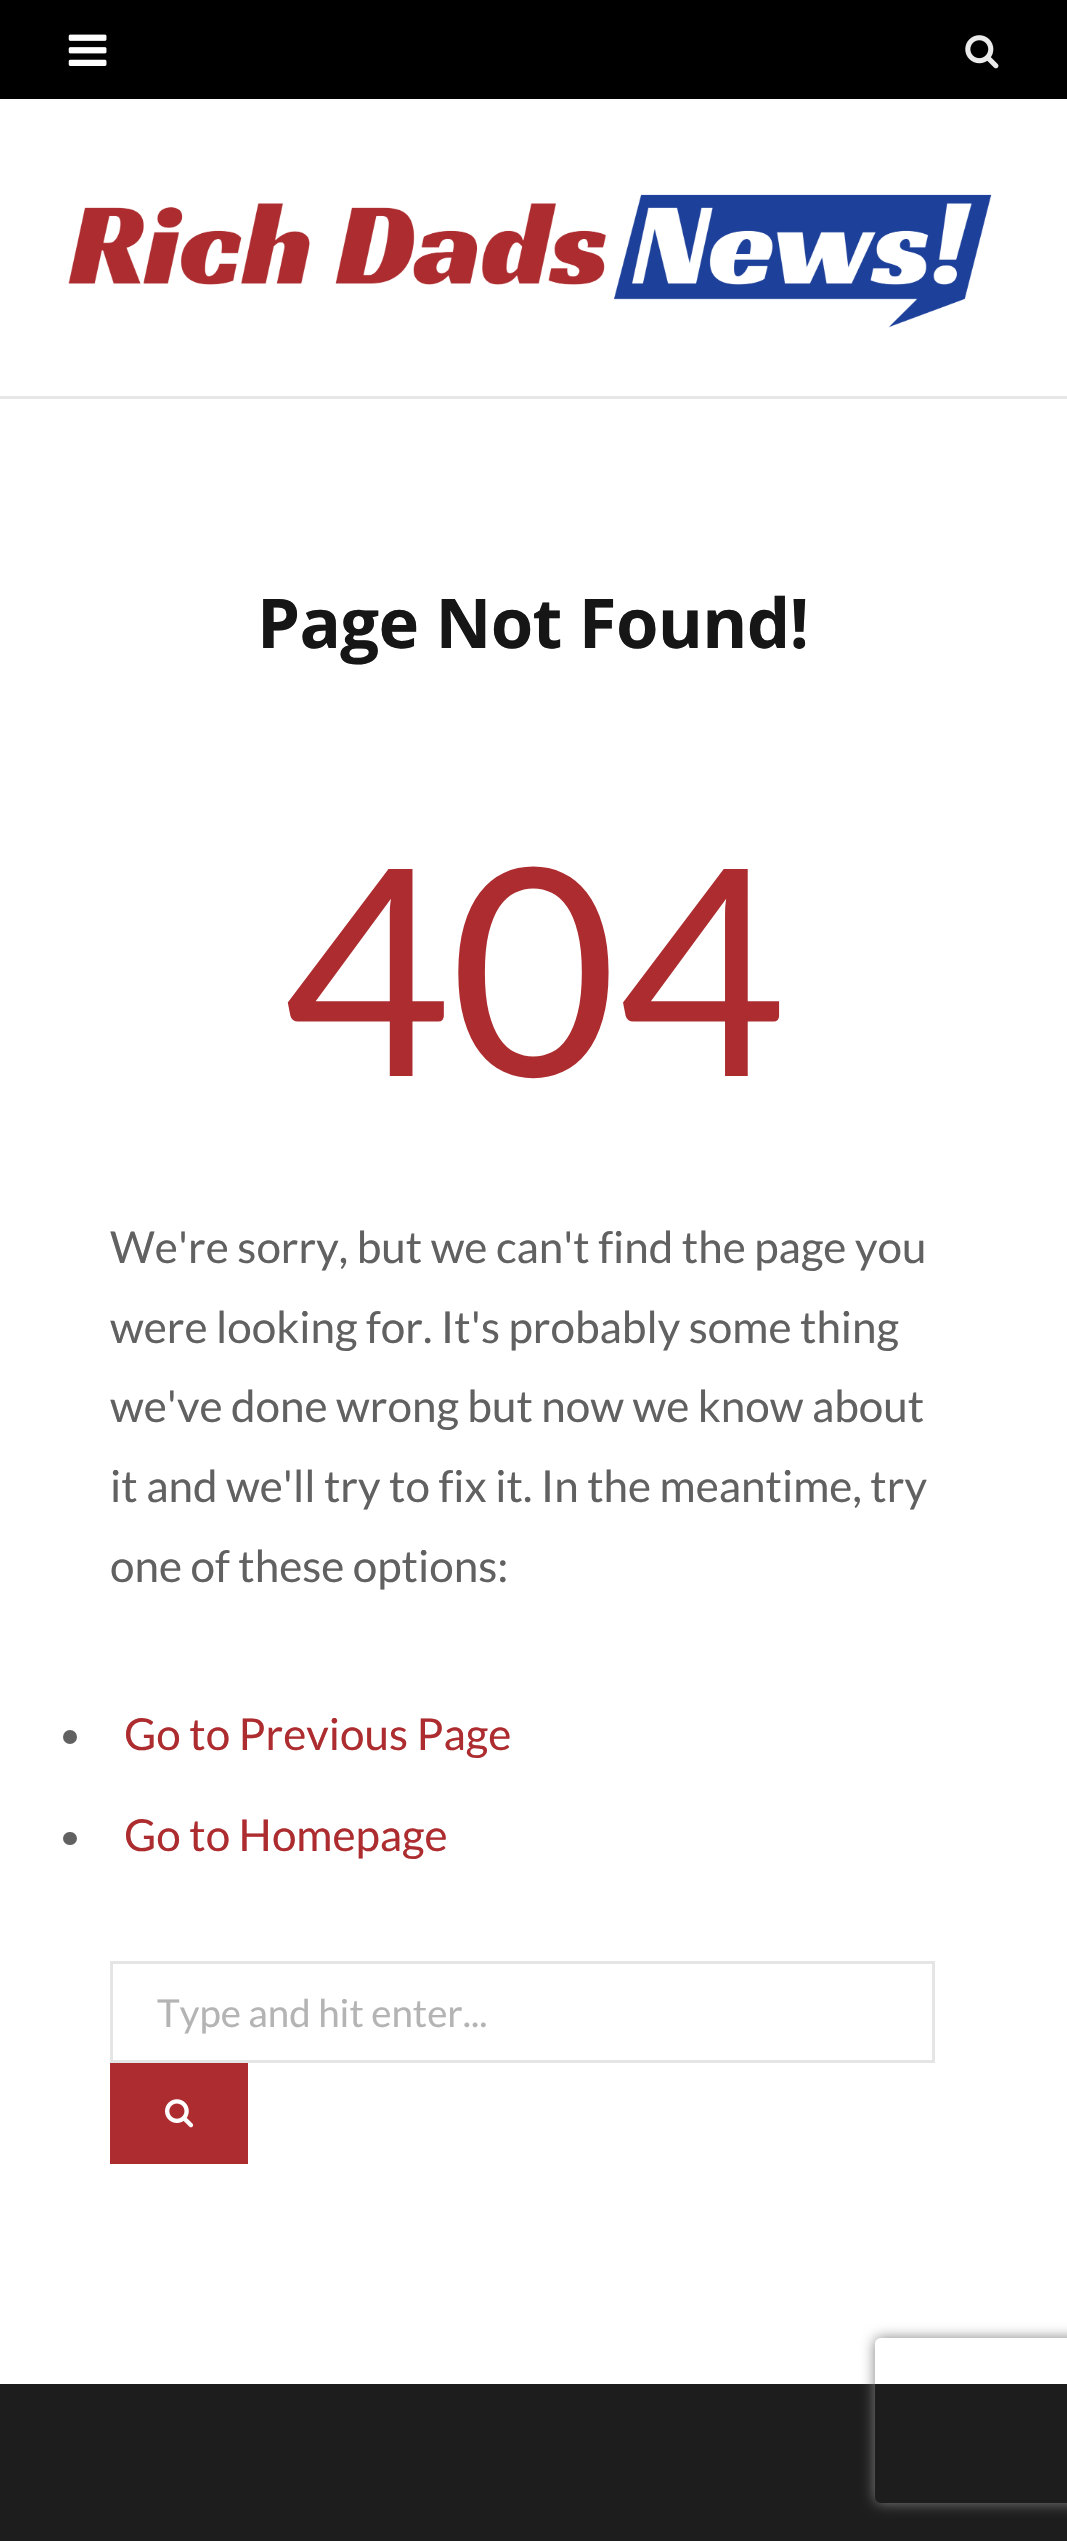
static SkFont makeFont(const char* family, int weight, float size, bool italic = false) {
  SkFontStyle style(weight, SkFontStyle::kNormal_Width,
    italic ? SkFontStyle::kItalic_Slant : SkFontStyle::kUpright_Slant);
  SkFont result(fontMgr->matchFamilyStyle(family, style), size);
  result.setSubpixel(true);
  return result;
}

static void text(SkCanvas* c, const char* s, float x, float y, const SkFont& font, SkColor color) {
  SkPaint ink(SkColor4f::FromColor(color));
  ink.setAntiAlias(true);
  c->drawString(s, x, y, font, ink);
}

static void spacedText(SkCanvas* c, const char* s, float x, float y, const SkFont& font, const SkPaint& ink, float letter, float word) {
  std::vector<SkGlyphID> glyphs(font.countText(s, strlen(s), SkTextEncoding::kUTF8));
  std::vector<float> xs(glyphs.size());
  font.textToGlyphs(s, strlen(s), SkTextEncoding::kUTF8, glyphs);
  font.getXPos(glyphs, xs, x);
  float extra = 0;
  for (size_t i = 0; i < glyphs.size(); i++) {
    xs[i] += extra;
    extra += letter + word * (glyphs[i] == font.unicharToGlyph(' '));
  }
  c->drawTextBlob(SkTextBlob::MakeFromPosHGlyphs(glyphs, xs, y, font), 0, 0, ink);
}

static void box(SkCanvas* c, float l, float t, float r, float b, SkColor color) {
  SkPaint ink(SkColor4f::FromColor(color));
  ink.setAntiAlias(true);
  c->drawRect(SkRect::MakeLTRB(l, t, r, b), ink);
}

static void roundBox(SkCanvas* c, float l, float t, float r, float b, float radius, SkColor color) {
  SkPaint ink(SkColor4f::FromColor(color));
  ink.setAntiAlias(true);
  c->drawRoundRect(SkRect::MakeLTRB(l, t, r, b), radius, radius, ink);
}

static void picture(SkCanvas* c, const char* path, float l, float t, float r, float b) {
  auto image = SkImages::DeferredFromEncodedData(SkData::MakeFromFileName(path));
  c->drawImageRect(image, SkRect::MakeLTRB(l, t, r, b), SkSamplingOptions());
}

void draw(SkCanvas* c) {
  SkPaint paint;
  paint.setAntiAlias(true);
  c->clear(0xffffffff);
  box(c, 0, 396, 1067, 399, 0xffe7e7e7);
  box(c, 0, 0, 1067, 99, 0xff000000);
  picture(c, "img_01.png", 68, 34, 107, 66);
  picture(c, "img_02.png", 965, 35, 999, 69);
  picture(c, "img_03.png", 68, 194, 992, 328);
  SkFont face1 = makeFont("Open Sans", 700, 68.75f);
  paint.setColor(0xff161616);
  spacedText(c, "Page Not Found!", 257, 648, face1, paint, -0.7f, 0);
  SkFont face2 = makeFont("Lato", 400, 289);
  text(c, "404", 282, 1076, face2, 0xffad2c2f);
  SkFont face3 = makeFont("Lato", 400, 44);
  text(c, "We're sorry, but we can't find the page you", 110, 1263, face3, 0xff616161);
  text(c, "were looking for. It's probably some thing", 110, 1343, face3, 0xff616161);
  text(c, "we've done wrong but now we know about", 110, 1422, face3, 0xff616161);
  text(c, "it and we'll try to fix it. In the meantime, try", 110, 1502, face3, 0xff616161);
  text(c, "one of these options:", 110, 1582, face3, 0xff616161);
  paint.setColor(0xff616161);
  c->drawCircle(70, 1737, 7, paint);
  text(c, "Go to Previous Page", 124, 1750, face3, 0xffad2c2f);
  roundBox(c, 63, 1832, 77, 1845, 6.5f, 0xff616161);
  text(c, "Go to Homepage", 124, 1851, face3, 0xffad2c2f);
  paint.setStyle(SkPaint::kStroke_Style);
  paint.setStrokeWidth(3);
  paint.setColor(0xffe5e5e5);
  c->drawRect(SkRect::MakeLTRB(111.5f, 1962.5f, 933.5f, 2061.5f), paint);
  SkFont face4 = makeFont("Lato", 400, 38.5f);
  text(c, "Type and hit enter...", 157, 2027, face4, 0xffb4b4b4);
  box(c, 110, 2063, 248, 2164, 0xffad2c2f);
  picture(c, "img_04.png", 165, 2099, 194, 2128);
  box(c, 0, 2384, 1067, 2541, 0xff1d1d1d);
  c->save();
  c->clipPath(SkPathBuilder(SkPathFillType::kEvenOdd).moveTo(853, 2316).lineTo(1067, 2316).lineTo(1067, 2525).lineTo(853, 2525).close().moveTo(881, 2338).lineTo(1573, 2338).cubicTo(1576.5f, 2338, 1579, 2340.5f, 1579, 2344).lineTo(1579, 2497).cubicTo(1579, 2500.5f, 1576.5f, 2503, 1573, 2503).lineTo(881, 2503).cubicTo(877.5f, 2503, 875, 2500.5f, 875, 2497).lineTo(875, 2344).cubicTo(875, 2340.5f, 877.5f, 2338, 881, 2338).close().detach(), true);
  paint.setStyle(SkPaint::kFill_Style);
  paint.setColor(0xff808080);
  paint.setMaskFilter(SkMaskFilter::MakeBlur(kNormal_SkBlurStyle, 7));
  c->drawRoundRect(SkRect::MakeLTRB(875, 2338, 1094, 2503), 6, 6, paint);
  paint.setMaskFilter(nullptr);
  c->restore();
}
